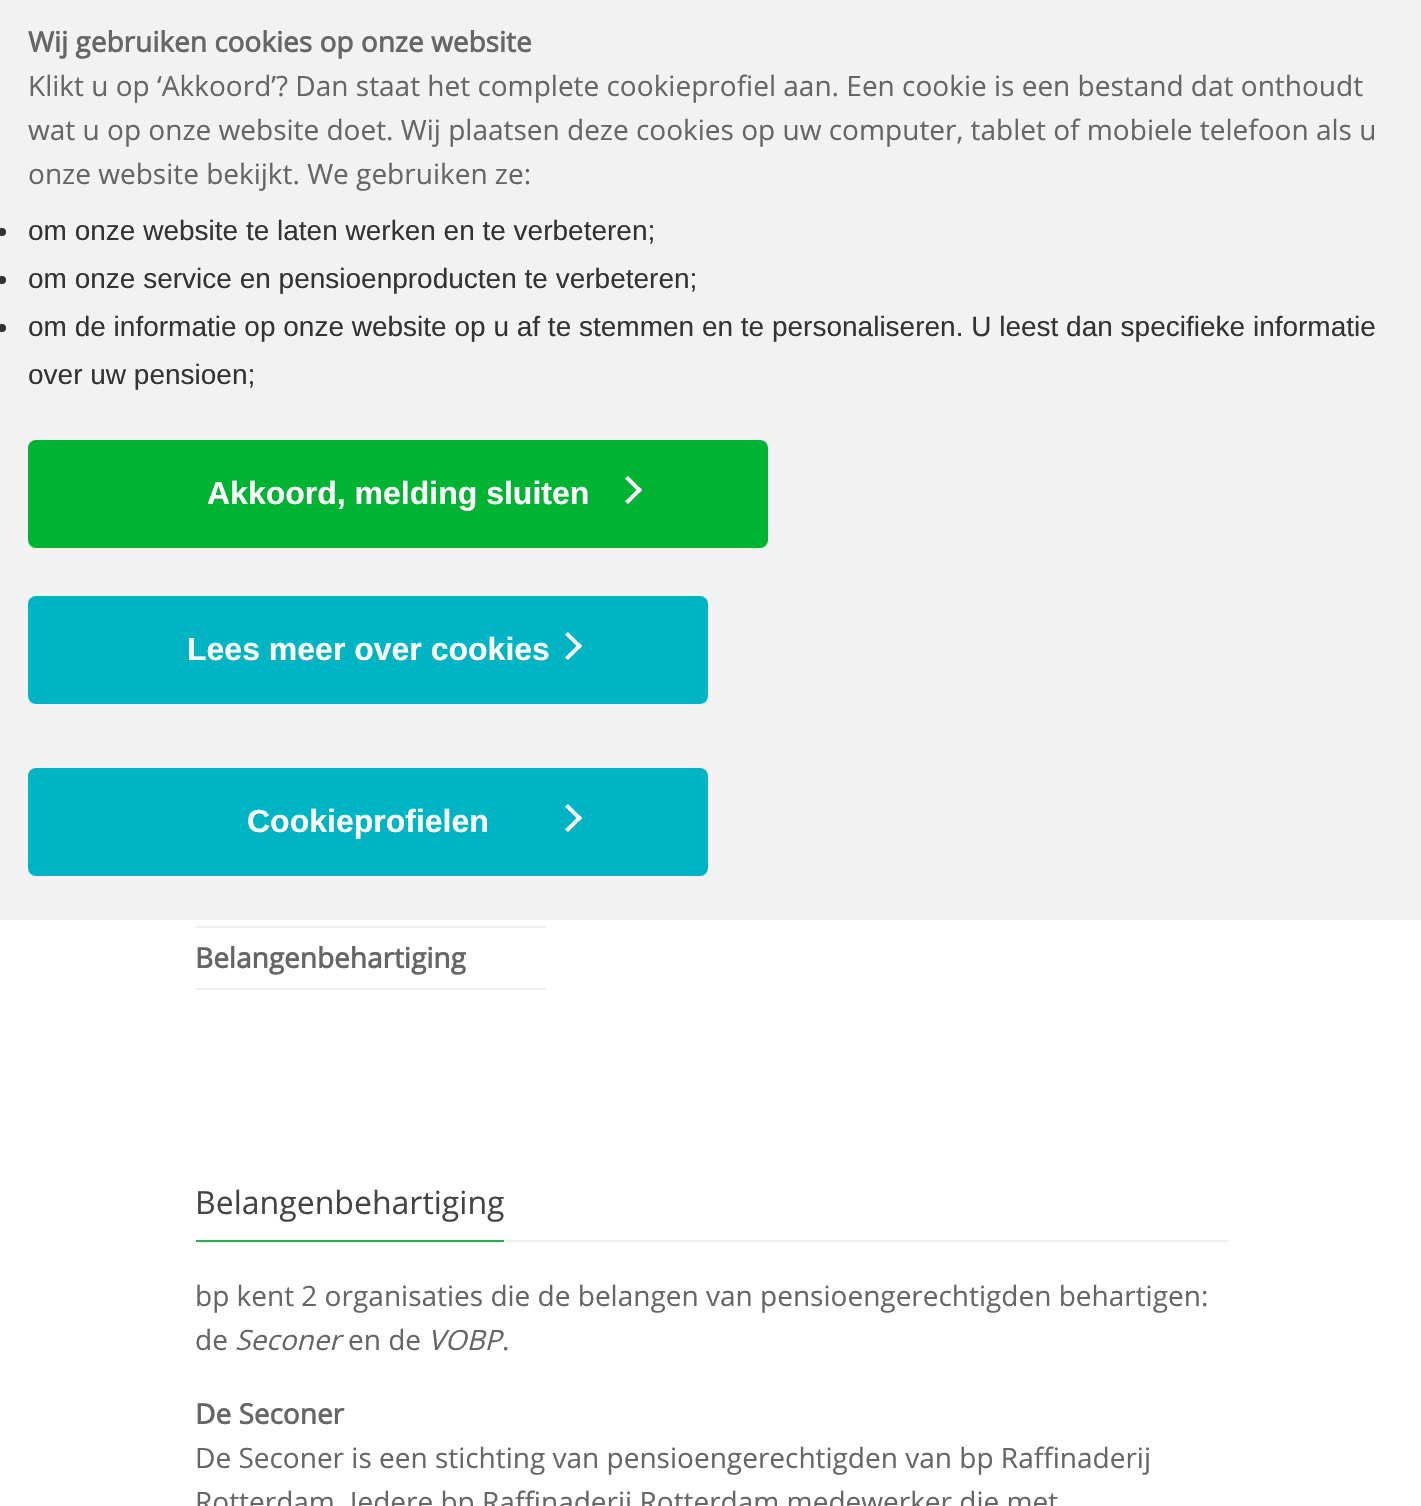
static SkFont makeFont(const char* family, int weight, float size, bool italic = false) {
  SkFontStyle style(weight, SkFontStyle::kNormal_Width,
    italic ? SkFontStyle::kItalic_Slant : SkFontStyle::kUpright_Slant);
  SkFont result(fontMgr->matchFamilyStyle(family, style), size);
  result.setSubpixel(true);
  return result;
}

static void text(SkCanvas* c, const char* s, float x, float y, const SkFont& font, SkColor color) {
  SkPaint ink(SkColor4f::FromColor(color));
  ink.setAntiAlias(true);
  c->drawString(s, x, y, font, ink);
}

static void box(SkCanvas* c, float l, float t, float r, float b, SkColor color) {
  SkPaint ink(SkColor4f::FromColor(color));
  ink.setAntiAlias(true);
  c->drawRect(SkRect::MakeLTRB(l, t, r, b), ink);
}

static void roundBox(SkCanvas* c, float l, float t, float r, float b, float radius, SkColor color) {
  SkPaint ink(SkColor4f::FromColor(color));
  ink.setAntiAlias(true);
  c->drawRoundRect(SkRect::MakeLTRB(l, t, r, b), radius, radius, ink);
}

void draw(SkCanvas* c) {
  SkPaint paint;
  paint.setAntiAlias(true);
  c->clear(0xffffffff);
  box(c, 0, 0, 1421, 920, 0xfff2f2f2);
  SkFont face1 = makeFont("Open Sans", 700, 28);
  text(c, "Wij gebruiken cookies op onze website", 28, 52, face1, 0xff666666);
  SkFont face2 = makeFont("Open Sans", 400, 28);
  text(c, "Klikt u op ‘Akkoord’? Dan staat het complete cookieprofiel aan. Een cookie is een bestand dat onthoudt", 28, 96, face2, 0xff666666);
  text(c, "wat u op onze website doet. Wij plaatsen deze cookies op uw computer, tablet of mobiele telefoon als u", 28, 140, face2, 0xff666666);
  text(c, "onze website bekijkt. We gebruiken ze:", 28, 184, face2, 0xff666666);
  paint.setColor(0xff333333);
  c->drawCircle(2, 232, 4, paint);
  SkFont face3 = makeFont("Liberation Sans", 400, 28);
  text(c, "om onze website te laten werken en te verbeteren;", 28, 240, face3, 0xff333333);
  c->drawCircle(2, 280, 4, paint);
  text(c, "om onze service en pensioenproducten te verbeteren;", 28, 288, face3, 0xff333333);
  c->drawCircle(2, 328, 4, paint);
  text(c, "om de informatie op onze website op u af te stemmen en te personaliseren. U leest dan specifieke informatie", 28, 336, face3, 0xff333333);
  text(c, "over uw pensioen;", 28, 384, face3, 0xff333333);
  roundBox(c, 28, 440, 768, 548, 8, 0xff00b332);
  SkFont face4 = makeFont("Liberation Sans", 700, 32);
  text(c, "Akkoord, melding sluiten", 207, 504, face4, 0xffffffff);
  paint.setColor(0xffffffff);
  c->drawPath(SkPathBuilder().moveTo(628, 476).lineTo(642, 490).lineTo(639.5f, 493).lineTo(625, 478.5f).close().detach(), paint);
  c->drawPath(SkPathBuilder().moveTo(639.5f, 487).lineTo(642, 490).lineTo(628, 504).lineTo(625, 501.5f).close().detach(), paint);
  roundBox(c, 28, 596, 708, 704, 8, 0xff00b4c3);
  text(c, "Lees meer over cookies", 187, 660, face4, 0xffffffff);
  c->drawPath(SkPathBuilder().moveTo(568, 632).lineTo(582, 646).lineTo(579.5f, 649).lineTo(565, 634.5f).close().detach(), paint);
  c->drawPath(SkPathBuilder().moveTo(579.5f, 643).lineTo(582, 646).lineTo(568, 660).lineTo(565, 657.5f).close().detach(), paint);
  roundBox(c, 28, 768, 708, 876, 8, 0xff00b4c3);
  text(c, "Cookieprofielen", 247, 832, face4, 0xffffffff);
  c->drawPath(SkPathBuilder().moveTo(568, 804).lineTo(582, 818).lineTo(579.5f, 821).lineTo(565, 806.5f).close().detach(), paint);
  c->drawPath(SkPathBuilder().moveTo(579.5f, 815).lineTo(582, 818).lineTo(568, 832).lineTo(565, 829.5f).close().detach(), paint);
  box(c, 196, 926, 546, 928, 0xffeeeeee);
  box(c, 196, 988, 546, 990, 0xffeeeeee);
  text(c, "Belangenbehartiging", 195, 968, face1, 0xff666666);
  box(c, 504, 1240, 1228, 1242, 0xffeeeeee);
  SkFont face5 = makeFont("Open Sans", 400, 32);
  text(c, "Belangenbehartiging", 195, 1214, face5, 0xff444444);
  box(c, 196, 1240, 504, 1242, 0xff35a551);
  text(c, "bp kent 2 organisaties die de belangen van pensioengerechtigden behartigen:", 195, 1306, face2, 0xff666666);
  text(c, "de", 195, 1350, face2, 0xff666666);
  SkFont face6 = makeFont("Open Sans", 400, 28, true);
  text(c, "Seconer", 235, 1350, face6, 0xff666666);
  text(c, "en de", 348, 1350, face2, 0xff666666);
  text(c, "VOBP", 428, 1350, face6, 0xff666666);
  text(c, ".", 502, 1350, face2, 0xff666666);
  text(c, "De Seconer", 195, 1424, face1, 0xff666666);
  text(c, "De Seconer is een stichting van pensioengerechtigden van bp Raffinaderij", 195, 1468, face2, 0xff666666);
  text(c, "Rotterdam. Iedere bp Raffinaderij Rotterdam medewerker die met", 195, 1512, face2, 0xff666666);
}
